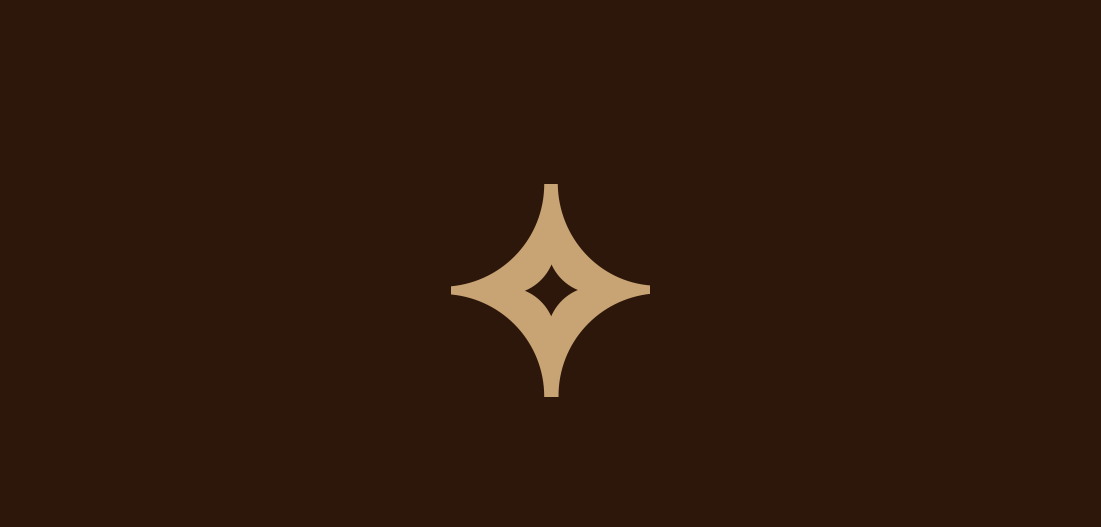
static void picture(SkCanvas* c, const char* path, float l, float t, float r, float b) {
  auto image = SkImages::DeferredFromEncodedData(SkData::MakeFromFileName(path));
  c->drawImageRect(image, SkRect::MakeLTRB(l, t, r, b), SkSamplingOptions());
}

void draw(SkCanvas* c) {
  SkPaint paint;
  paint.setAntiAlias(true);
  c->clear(0xff2d170a);
  picture(c, "img_01.png", 451, 184, 650, 397);
}
